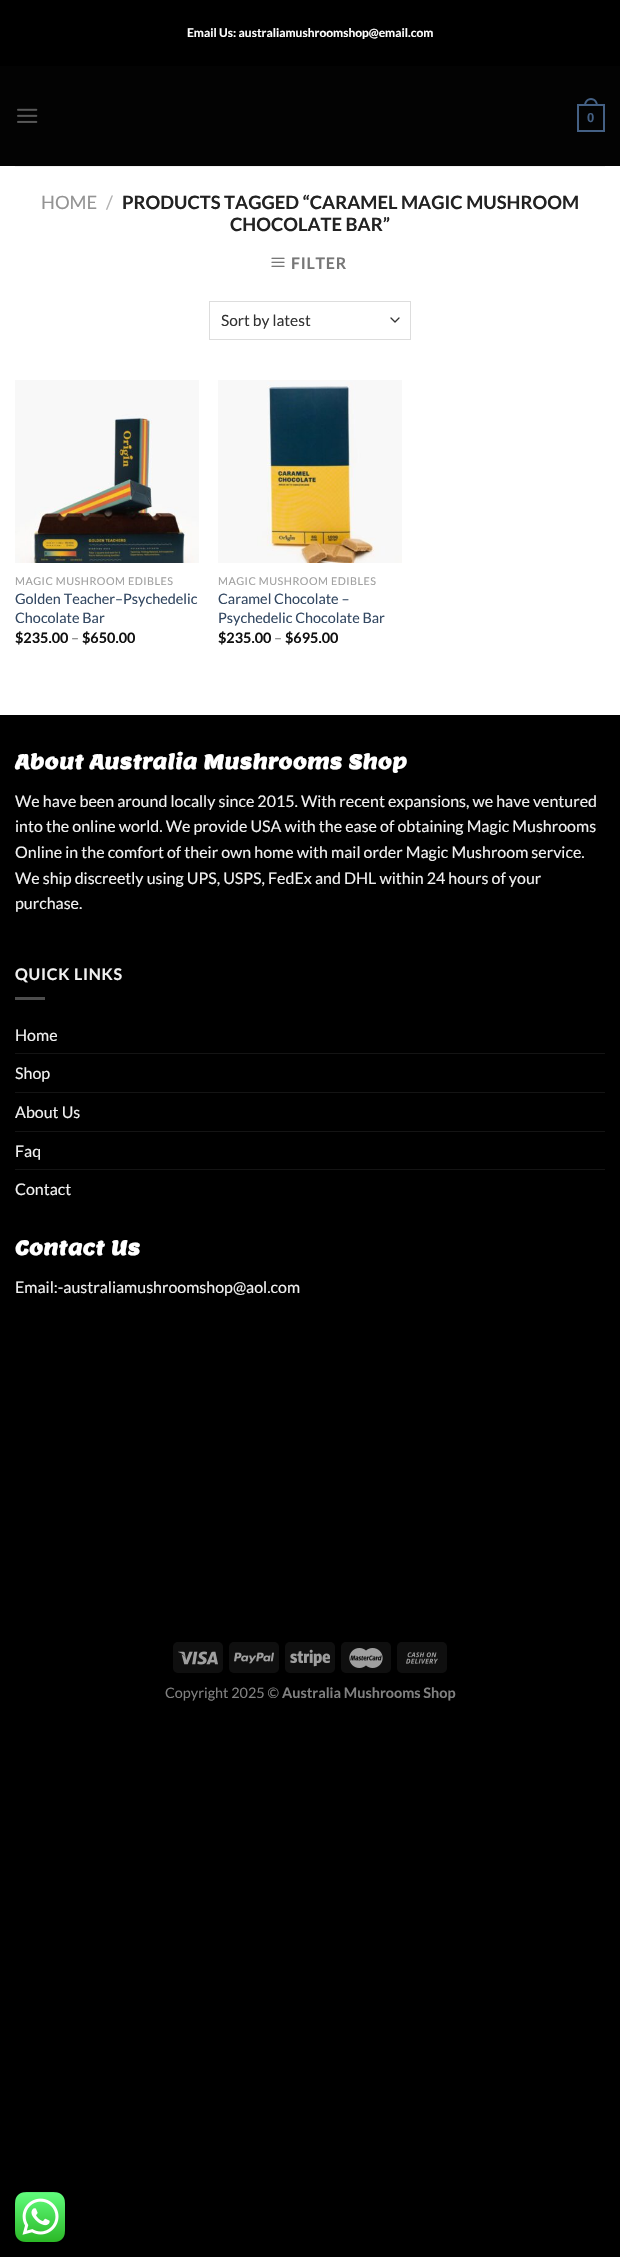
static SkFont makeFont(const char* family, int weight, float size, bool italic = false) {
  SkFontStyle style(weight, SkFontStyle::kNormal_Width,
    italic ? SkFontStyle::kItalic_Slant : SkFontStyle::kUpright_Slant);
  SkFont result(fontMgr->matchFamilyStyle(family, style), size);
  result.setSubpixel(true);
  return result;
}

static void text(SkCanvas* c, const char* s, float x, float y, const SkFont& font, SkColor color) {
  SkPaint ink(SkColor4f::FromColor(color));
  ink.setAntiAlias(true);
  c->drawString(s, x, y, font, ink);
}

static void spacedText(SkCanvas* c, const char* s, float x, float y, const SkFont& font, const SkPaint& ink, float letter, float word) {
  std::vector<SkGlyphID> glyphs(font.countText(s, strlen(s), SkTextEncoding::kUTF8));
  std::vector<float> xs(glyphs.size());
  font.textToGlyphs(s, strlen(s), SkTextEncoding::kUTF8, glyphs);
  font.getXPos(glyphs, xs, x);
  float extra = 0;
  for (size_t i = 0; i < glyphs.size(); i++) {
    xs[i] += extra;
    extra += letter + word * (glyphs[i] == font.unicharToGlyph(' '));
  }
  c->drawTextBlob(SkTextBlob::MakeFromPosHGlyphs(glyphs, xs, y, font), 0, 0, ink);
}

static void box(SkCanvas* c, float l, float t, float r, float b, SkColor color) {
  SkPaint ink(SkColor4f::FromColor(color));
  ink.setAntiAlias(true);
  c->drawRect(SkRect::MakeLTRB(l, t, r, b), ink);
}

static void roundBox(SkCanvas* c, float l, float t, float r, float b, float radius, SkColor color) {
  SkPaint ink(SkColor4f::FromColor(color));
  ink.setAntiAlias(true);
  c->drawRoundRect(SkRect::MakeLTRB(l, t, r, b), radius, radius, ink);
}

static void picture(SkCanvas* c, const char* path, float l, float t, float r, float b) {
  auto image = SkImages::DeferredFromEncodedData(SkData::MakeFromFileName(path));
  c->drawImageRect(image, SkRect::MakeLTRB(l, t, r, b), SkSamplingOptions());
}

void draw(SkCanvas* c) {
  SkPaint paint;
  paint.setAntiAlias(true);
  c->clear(0xff000000);
  box(c, 0, 166, 620, 715, 0xffffffff);
  SkFont face1 = makeFont("Lato", 700, 12);
  text(c, "Email Us: australiamushroomshop@email.com", 187, 37, face1, 0xffffffff);
  box(c, 0, 66, 620, 166, 0xff030303);
  picture(c, "img_01.png", 17, 108, 38, 123);
  paint.setStyle(SkPaint::kStroke_Style);
  paint.setStrokeWidth(2);
  paint.setColor(0xff446084);
  c->drawRect(SkRect::MakeLTRB(578, 105, 604, 131), paint);
  paint.setStyle(SkPaint::kFill_Style);
  c->drawPath(SkPathBuilder(SkPathFillType::kEvenOdd).moveTo(591, 98).cubicTo(595.5f, 98, 598, 102, 598, 106).lineTo(584, 106).cubicTo(584, 102, 586.5f, 98, 591, 98).close().moveTo(591, 100).cubicTo(594.5f, 100, 596, 103, 596, 106).lineTo(586, 106).cubicTo(586, 103, 587.5f, 100, 591, 100).close().detach(), paint);
  SkFont face2 = makeFont("Liberation Sans", 700, 13);
  text(c, "0", 587, 122, face2, 0xff446084);
  box(c, 15, 166, 605, 167, 0xfff1f1f1);
  SkFont face3 = makeFont("Lato", 400, 18.4f);
  text(c, "HOME", 41, 209, face3, 0xff949494);
  text(c, "/", 106, 209, face3, 0xffb2b2b2);
  SkFont face4 = makeFont("Lato", 700, 18.4f);
  text(c, "PRODUCTS TAGGED “CARAMEL MAGIC MUSHROOM", 122, 209, face4, 0xff222222);
  text(c, "CHOCOLATE BAR”", 230, 231, face4, 0xff222222);
  picture(c, "img_02.png", 271, 257, 285, 267);
  SkFont face5 = makeFont("Lato", 700, 16);
  paint.setColor(0xff777777);
  spacedText(c, "FILTER", 291, 269, face5, paint, 0.75f, 0);
  paint.setStyle(SkPaint::kStroke_Style);
  paint.setStrokeWidth(1.3f);
  paint.setStrokeCap(SkPaint::kRound_Cap);
  paint.setStrokeJoin(SkPaint::kRound_Join);
  paint.setColor(0xff333333);
  c->drawPath(SkPathBuilder().moveTo(391, 318).lineTo(395, 322).lineTo(399, 318).detach(), paint);
  paint.setStrokeWidth(1);
  paint.setStrokeCap(SkPaint::kButt_Cap);
  paint.setStrokeJoin(SkPaint::kMiter_Join);
  paint.setColor(0xffdddddd);
  c->drawRect(SkRect::MakeLTRB(209.5f, 301.5f, 410.5f, 339.5f), paint);
  SkFont face6 = makeFont("Lato", 400, 15.5f);
  text(c, "Sort by latest", 221, 326, face6, 0xff333333);
  picture(c, "img_03.png", 15, 380, 199, 563);
  SkFont face7 = makeFont("Lato", 400, 10.75f);
  paint.setStyle(SkPaint::kFill_Style);
  paint.setColor(0xffa0a0a0);
  spacedText(c, "MAGIC MUSHROOM EDIBLES", 15, 585, face7, paint, 0.5f, 0);
  SkFont face8 = makeFont("Lato", 400, 14.4f);
  text(c, "Golden Teacher–Psychedelic", 15, 604, face8, 0xff334862);
  text(c, "Chocolate Bar", 15, 623, face8, 0xff334862);
  SkFont face9 = makeFont("Lato", 700, 14.4f);
  text(c, "$235.00", 15, 643, face9, 0xff111111);
  text(c, "–", 71, 643, face8, 0xff777777);
  text(c, "$650.00", 82, 643, face9, 0xff111111);
  picture(c, "img_04.png", 218, 380, 402, 563);
  spacedText(c, "MAGIC MUSHROOM EDIBLES", 218, 585, face7, paint, 0.5f, 0);
  text(c, "Caramel Chocolate –", 218, 604, face8, 0xff334862);
  text(c, "Psychedelic Chocolate Bar", 218, 623, face8, 0xff334862);
  text(c, "$235.00", 218, 643, face9, 0xff111111);
  text(c, "–", 274, 643, face8, 0xff777777);
  text(c, "$695.00", 285, 643, face9, 0xff111111);
  SkFont face10 = makeFont("Lemon", 700, 20);
  text(c, "About Australia Mushrooms Shop", 15, 769, face10, 0xffffffff);
  SkFont face11 = makeFont("Lato", 400, 16);
  text(c, "We have been around locally since 2015. With recent expansions, we have ventured", 15, 807, face11, 0xfff1f1f1);
  text(c, "into the online world. We provide USA with the ease of obtaining Magic Mushrooms", 15, 832, face11, 0xfff1f1f1);
  text(c, "Online in the comfort of their own home with mail order Magic Mushroom service.", 15, 858, face11, 0xfff1f1f1);
  text(c, "We ship discreetly using UPS, USPS, FedEx and DHL within 24 hours of your", 15, 884, face11, 0xfff1f1f1);
  text(c, "purchase.", 15, 909, face11, 0xfff1f1f1);
  paint.setColor(0xfff1f1f1);
  spacedText(c, "QUICK LINKS", 15, 980, face5, paint, 0.75f, 0);
  box(c, 15, 997, 45, 1000, 0xff4d4d4d);
  text(c, "Home", 15, 1041, face11, 0xfff1f1f1);
  box(c, 15, 1053, 605, 1054, 0xff141414);
  text(c, "Shop", 15, 1079, face11, 0xfff1f1f1);
  box(c, 15, 1092, 605, 1093, 0xff141414);
  text(c, "About Us", 15, 1118, face11, 0xfff1f1f1);
  box(c, 15, 1131, 605, 1132, 0xff141414);
  text(c, "Faq", 15, 1157, face11, 0xfff1f1f1);
  box(c, 15, 1169, 605, 1170, 0xff141414);
  text(c, "Contact", 15, 1195, face11, 0xfff1f1f1);
  text(c, "Contact Us", 15, 1255, face10, 0xffffffff);
  text(c, "Email:-australiamushroomshop@aol.com", 15, 1293, face11, 0xfff1f1f1);
  roundBox(c, 173, 1642, 223, 1673, 5, 0xff0f0f0f);
  picture(c, "img_05.png", 178, 1651, 218, 1665);
  roundBox(c, 229, 1642, 279, 1673, 5, 0xff0f0f0f);
  picture(c, "img_06.png", 234, 1652, 274, 1664);
  roundBox(c, 285, 1642, 335, 1673, 5, 0xff0f0f0f);
  picture(c, "img_07.png", 290, 1649, 330, 1667);
  roundBox(c, 341, 1642, 391, 1673, 5, 0xff0f0f0f);
  picture(c, "img_08.png", 349, 1648, 383, 1668);
  roundBox(c, 397, 1642, 447, 1673, 5, 0xff0f0f0f);
  picture(c, "img_09.png", 406, 1652, 438, 1664);
  text(c, "Copyright 2025 ©", 165, 1698, face8, 0xff808080);
  text(c, "Australia Mushrooms Shop", 282, 1698, face9, 0xff808080);
  picture(c, "img_10.png", 15, 2192, 65, 2242);
}
